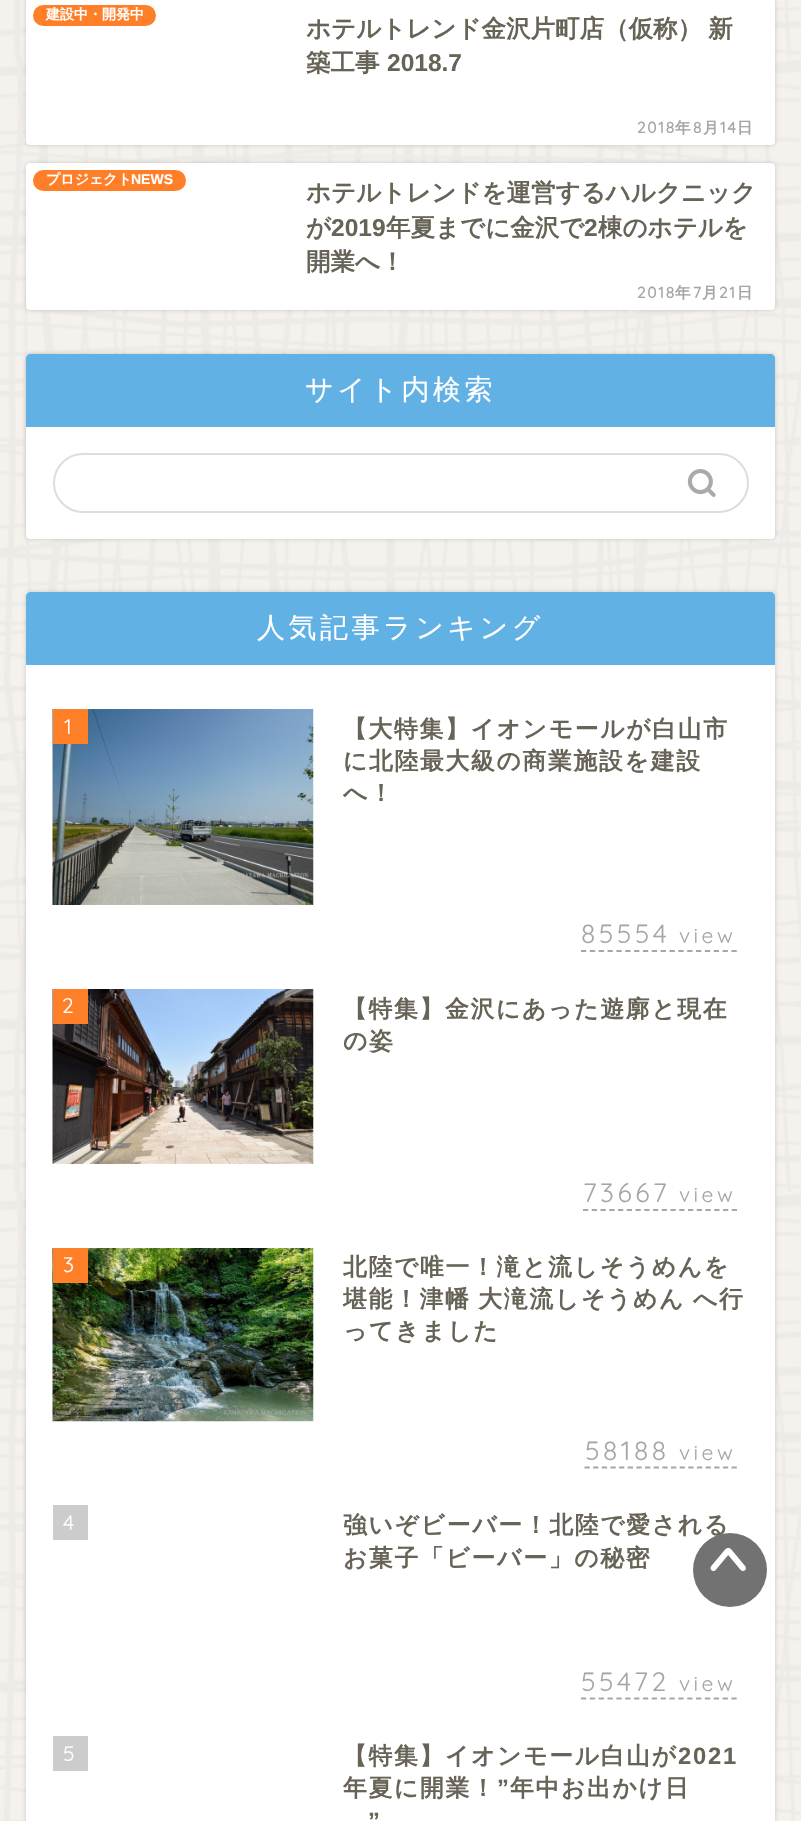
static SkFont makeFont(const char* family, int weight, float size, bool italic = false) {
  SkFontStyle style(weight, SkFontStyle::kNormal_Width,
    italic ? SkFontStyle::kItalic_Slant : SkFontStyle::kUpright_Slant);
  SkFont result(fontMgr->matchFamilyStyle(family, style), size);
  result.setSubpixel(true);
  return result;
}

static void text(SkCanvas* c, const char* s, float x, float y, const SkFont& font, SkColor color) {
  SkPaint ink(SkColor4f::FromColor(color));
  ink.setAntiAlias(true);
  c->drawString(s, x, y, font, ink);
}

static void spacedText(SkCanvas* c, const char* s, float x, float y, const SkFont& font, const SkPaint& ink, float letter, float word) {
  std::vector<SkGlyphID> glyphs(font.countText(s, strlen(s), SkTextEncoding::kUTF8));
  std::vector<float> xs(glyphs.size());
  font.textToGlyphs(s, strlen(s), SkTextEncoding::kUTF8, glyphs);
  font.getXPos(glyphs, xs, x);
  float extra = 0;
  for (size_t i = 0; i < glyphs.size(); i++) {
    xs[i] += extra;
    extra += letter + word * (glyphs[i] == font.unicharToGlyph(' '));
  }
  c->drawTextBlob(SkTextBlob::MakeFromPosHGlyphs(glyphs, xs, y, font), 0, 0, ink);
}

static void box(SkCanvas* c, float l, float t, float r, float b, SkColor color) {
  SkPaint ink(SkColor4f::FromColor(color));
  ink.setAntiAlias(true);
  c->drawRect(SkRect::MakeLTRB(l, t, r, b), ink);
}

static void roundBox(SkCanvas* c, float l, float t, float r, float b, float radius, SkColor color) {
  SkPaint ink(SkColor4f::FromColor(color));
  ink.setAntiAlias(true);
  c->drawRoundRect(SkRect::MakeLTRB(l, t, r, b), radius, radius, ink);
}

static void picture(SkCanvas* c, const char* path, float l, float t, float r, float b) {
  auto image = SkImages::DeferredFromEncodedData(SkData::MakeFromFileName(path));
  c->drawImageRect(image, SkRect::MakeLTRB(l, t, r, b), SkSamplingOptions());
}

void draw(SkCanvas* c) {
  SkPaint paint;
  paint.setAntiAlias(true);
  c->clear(0xffffffff);
  picture(c, "img_01.png", 0, 0, 801, 1821);
  paint.setColor(0x2e000000);
  paint.setMaskFilter(SkMaskFilter::MakeBlur(kNormal_SkBlurStyle, 2));
  c->drawRoundRect(SkRect::MakeLTRB(26, -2, 775, 145), 4, 4, paint);
  paint.setMaskFilter(nullptr);
  roundBox(c, 26, -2, 775, 145, 4, 0xffffffff);
  roundBox(c, 33, 5, 156, 26, 10.5f, 0xffff7e28);
  SkFont face1 = makeFont("WenQuanYi Zen Hei", 700, 14);
  text(c, "建設中・開発中", 46, 19, face1, 0xffffffff);
  SkFont face2 = makeFont("WenQuanYi Zen Hei", 700, 24.5f);
  paint.setColor(0xff686357);
  spacedText(c, "ホテルトレンド金沢片町店（仮称） 新", 306, 37, face2, paint, 0, -1);
  text(c, "築工事", 306, 71, face2, 0xff686357);
  SkFont face3 = makeFont("Liberation Sans", 700, 24.5f);
  text(c, "2018.7", 387, 71, face3, 0xff686357);
  SkFont face4 = makeFont("Quicksand", 700, 15.5f);
  paint.setColor(0xffa6a6a6);
  spacedText(c, "2018", 637, 133, face4, paint, 1.75f, 0);
  SkFont face5 = makeFont("WenQuanYi Zen Hei", 700, 15.5f);
  spacedText(c, "年", 675, 133, face5, paint, 1.75f, 0);
  spacedText(c, "8", 693, 133, face4, paint, 1.75f, 0);
  spacedText(c, "月", 703, 133, face5, paint, 1.75f, 0);
  spacedText(c, "14", 720, 133, face4, paint, 1.75f, 0);
  spacedText(c, "日", 737, 133, face5, paint, 1.75f, 0);
  paint.setColor(0x2e000000);
  paint.setMaskFilter(SkMaskFilter::MakeBlur(kNormal_SkBlurStyle, 2));
  c->drawRoundRect(SkRect::MakeLTRB(26, 163, 775, 310), 4, 4, paint);
  paint.setMaskFilter(nullptr);
  roundBox(c, 26, 163, 775, 310, 4, 0xffffffff);
  roundBox(c, 33, 170, 186, 191, 10.5f, 0xffff7e28);
  text(c, "プロジェクト", 46, 184, face1, 0xffffffff);
  SkFont face6 = makeFont("Liberation Sans", 700, 14);
  text(c, "NEWS", 131, 184, face6, 0xffffffff);
  text(c, "ホテルトレンドを運営するハルクニック", 306, 201, face2, 0xff686357);
  text(c, "が", 306, 236, face2, 0xff686357);
  text(c, "2019", 331, 236, face3, 0xff686357);
  text(c, "年夏までに金沢で", 386, 236, face2, 0xff686357);
  text(c, "2", 584, 236, face3, 0xff686357);
  text(c, "棟のホテルを", 598, 236, face2, 0xff686357);
  text(c, "開業へ！", 306, 270, face2, 0xff686357);
  paint.setColor(0xffa6a6a6);
  spacedText(c, "2018", 637, 298, face4, paint, 1.75f, 0);
  spacedText(c, "年", 675, 298, face5, paint, 1.75f, 0);
  spacedText(c, "7", 693, 298, face4, paint, 1.75f, 0);
  spacedText(c, "月", 702, 298, face5, paint, 1.75f, 0);
  spacedText(c, "21", 719, 298, face4, paint, 1.75f, 0);
  spacedText(c, "日", 737, 298, face5, paint, 1.75f, 0);
  paint.setColor(0x2e000000);
  paint.setMaskFilter(SkMaskFilter::MakeBlur(kNormal_SkBlurStyle, 2));
  c->drawRoundRect(SkRect::MakeLTRB(26, 354, 775, 539), 4, 4, paint);
  paint.setMaskFilter(nullptr);
  roundBox(c, 26, 354, 775, 539, 4, 0xffffffff);
  paint.setColor(0xff62b1e5);
  c->drawPath(SkPathBuilder().moveTo(30, 354).lineTo(771, 354).cubicTo(773, 354, 775, 356, 775, 358).lineTo(775, 427).lineTo(26, 427).lineTo(26, 358).cubicTo(26, 356, 28, 354, 30, 354).close().detach(), paint);
  SkFont face7 = makeFont("WenQuanYi Zen Hei", 500, 28);
  paint.setColor(0xffffffff);
  spacedText(c, "サイト内検索", 305, 399, face7, paint, 3.5f, 0);
  paint.setStyle(SkPaint::kStroke_Style);
  paint.setStrokeWidth(2);
  paint.setColor(0xffdddddd);
  c->drawRoundRect(SkRect::MakeLTRB(54, 454, 748, 512), 29, 29, paint);
  picture(c, "img_02.png", 687, 469, 716, 497);
  paint.setStyle(SkPaint::kFill_Style);
  paint.setColor(0x2e000000);
  paint.setMaskFilter(SkMaskFilter::MakeBlur(kNormal_SkBlurStyle, 2));
  c->drawRoundRect(SkRect::MakeLTRB(26, 592, 775, 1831), 4, 4, paint);
  paint.setMaskFilter(nullptr);
  roundBox(c, 26, 592, 775, 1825, 4, 0xffffffff);
  paint.setColor(0xff62b1e5);
  c->drawPath(SkPathBuilder().moveTo(30, 592).lineTo(771, 592).cubicTo(773, 592, 775, 594, 775, 596).lineTo(775, 665).lineTo(26, 665).lineTo(26, 596).cubicTo(26, 594, 28, 592, 30, 592).close().detach(), paint);
  paint.setColor(0xffffffff);
  spacedText(c, "人気記事ランキング", 257, 637, face7, paint, 3.5f, 0);
  picture(c, "img_03.png", 52, 709, 314, 905);
  box(c, 53, 709, 88, 744, 0xffff7e28);
  SkFont face8 = makeFont("Quicksand", 300, 21);
  spacedText(c, "1", 64, 734, face8, paint, 3.5f, 0);
  SkFont face9 = makeFont("WenQuanYi Zen Hei", 700, 23.75f);
  paint.setColor(0xff686357);
  spacedText(c, "【大特集】イオンモールが白山市", 343, 737, face9, paint, 1.75f, 0);
  spacedText(c, "に北陸最大級の商業施設を建設", 343, 769, face9, paint, 1.75f, 0);
  spacedText(c, "へ！", 343, 801, face9, paint, 1.75f, 0);
  paint.setStyle(SkPaint::kStroke_Style);
  paint.setStrokeWidth(1.8f);
  paint.setColor(0xffa6a6a6);
  paint.setPathEffect(SkDashPathEffect::Make({{5.25f, 3.6f}}, 0));
  c->drawPath(SkPathBuilder().moveTo(581, 951).lineTo(737, 951).detach(), paint);
  paint.setPathEffect(nullptr);
  SkFont face10 = makeFont("Quicksand", 300, 26.5f);
  paint.setStyle(SkPaint::kFill_Style);
  spacedText(c, "85554", 581, 943, face10, paint, 3.5f, 0);
  spacedText(c, "view", 679, 943, face8, paint, 3.5f, 0);
  picture(c, "img_04.png", 52, 989, 314, 1164);
  box(c, 53, 989, 88, 1024, 0xffff7e28);
  paint.setColor(0xffffffff);
  spacedText(c, "2", 62, 1013, face8, paint, 3.5f, 0);
  paint.setColor(0xff686357);
  spacedText(c, "【特集】金沢にあった遊廓と現在", 343, 1017, face9, paint, 1.75f, 0);
  spacedText(c, "の姿", 343, 1049, face9, paint, 1.75f, 0);
  paint.setStyle(SkPaint::kStroke_Style);
  paint.setColor(0xffa6a6a6);
  paint.setPathEffect(SkDashPathEffect::Make({{5.25f, 3.5f}}, 0));
  c->drawPath(SkPathBuilder().moveTo(583, 1210).lineTo(737, 1210).detach(), paint);
  paint.setPathEffect(nullptr);
  paint.setStyle(SkPaint::kFill_Style);
  spacedText(c, "73667", 583, 1202, face10, paint, 3.5f, 0);
  spacedText(c, "view", 679, 1202, face8, paint, 3.5f, 0);
  picture(c, "img_05.png", 52, 1248, 314, 1422);
  box(c, 53, 1248, 88, 1283, 0xffff7e28);
  paint.setColor(0xffffffff);
  spacedText(c, "3", 63, 1272, face8, paint, 3.5f, 0);
  paint.setColor(0xff686357);
  spacedText(c, "北陸で唯一！滝と流しそうめんを", 343, 1275, face9, paint, 1.75f, 0);
  spacedText(c, "堪能！津幡 大滝流しそうめん へ行", 343, 1307, face9, paint, 1.75f, -1);
  spacedText(c, "ってきました", 343, 1339, face9, paint, 1.75f, 0);
  paint.setStyle(SkPaint::kStroke_Style);
  paint.setColor(0xffa6a6a6);
  paint.setPathEffect(SkDashPathEffect::Make({{5.25f, 3.4f}}, 0));
  c->drawPath(SkPathBuilder().moveTo(584.5f, 1467.5f).lineTo(737, 1467.5f).detach(), paint);
  paint.setPathEffect(nullptr);
  paint.setStyle(SkPaint::kFill_Style);
  spacedText(c, "58188", 585, 1460, face10, paint, 3.5f, 0);
  spacedText(c, "view", 679, 1460, face8, paint, 3.5f, 0);
  box(c, 53, 1505, 88, 1540, 0xffcccccc);
  paint.setColor(0xffffffff);
  spacedText(c, "4", 63, 1530, face8, paint, 3.5f, 0);
  paint.setColor(0xff686357);
  spacedText(c, "強いぞビーバー！北陸で愛される", 343, 1533, face9, paint, 1.75f, 0);
  spacedText(c, "お菓子「ビーバー」の秘密", 343, 1566, face9, paint, 1.75f, 0);
  paint.setStyle(SkPaint::kStroke_Style);
  paint.setColor(0xffa6a6a6);
  paint.setPathEffect(SkDashPathEffect::Make({{5.25f, 3.6f}}, 0));
  c->drawPath(SkPathBuilder().moveTo(581, 1698.5f).lineTo(737, 1698.5f).detach(), paint);
  paint.setPathEffect(nullptr);
  paint.setStyle(SkPaint::kFill_Style);
  spacedText(c, "55472", 581, 1691, face10, paint, 3.5f, 0);
  spacedText(c, "view", 679, 1691, face8, paint, 3.5f, 0);
  box(c, 53, 1736, 88, 1771, 0xffcccccc);
  paint.setColor(0xffffffff);
  spacedText(c, "5", 63, 1761, face8, paint, 3.5f, 0);
  paint.setColor(0xff686357);
  spacedText(c, "【特集】イオンモール白山が", 343, 1764, face9, paint, 1.75f, 0);
  SkFont face11 = makeFont("Liberation Sans", 700, 23.75f);
  spacedText(c, "2021", 678, 1764, face11, paint, 1.75f, 0);
  spacedText(c, "年夏に開業！", 343, 1796, face9, paint, 1.75f, 0);
  spacedText(c, "”", 497, 1796, face11, paint, 1.75f, 0);
  spacedText(c, "年中お出かけ日", 510, 1796, face9, paint, 1.75f, 0);
  spacedText(c, "”", 368, 1829, face11, paint, 1.75f, 0);
  paint.setColor(0xff727272);
  c->drawCircle(730, 1570, 37, paint);
  picture(c, "img_06.png", 710, 1548, 746, 1571);
}
